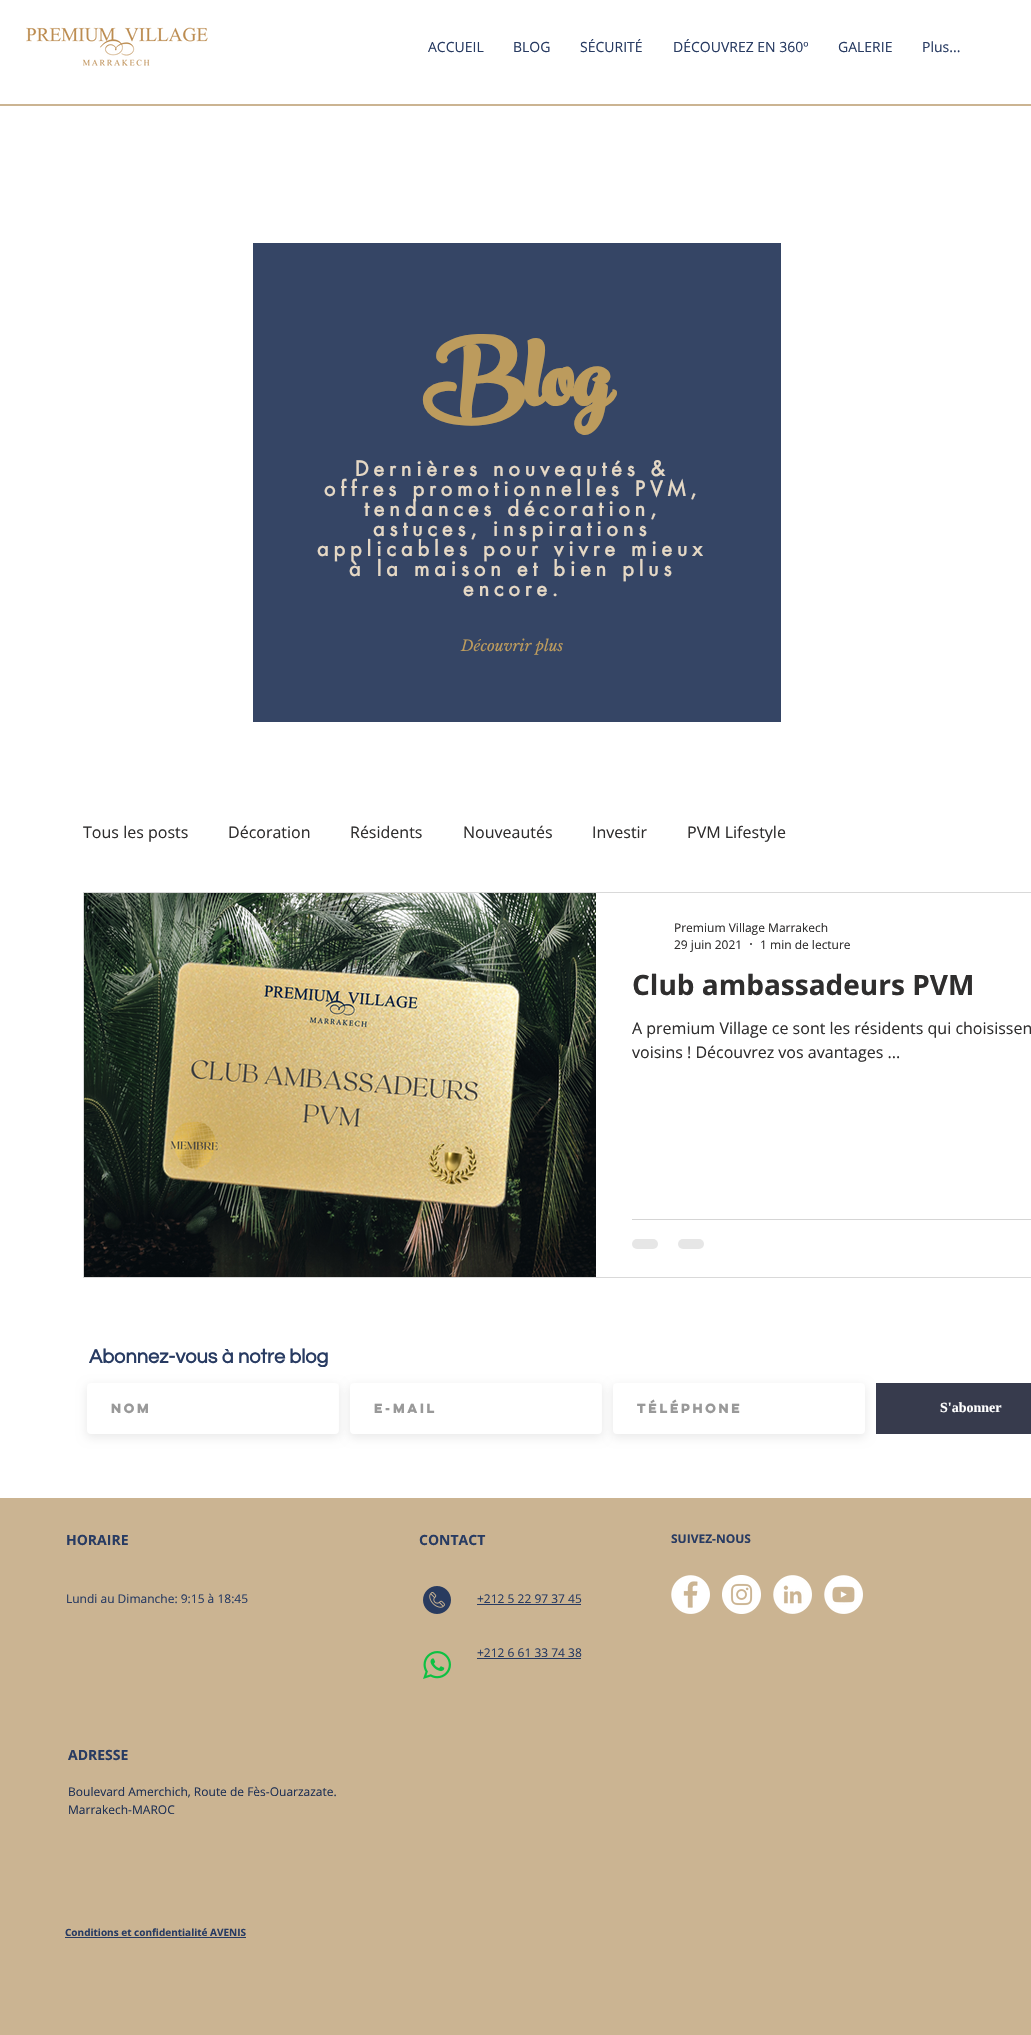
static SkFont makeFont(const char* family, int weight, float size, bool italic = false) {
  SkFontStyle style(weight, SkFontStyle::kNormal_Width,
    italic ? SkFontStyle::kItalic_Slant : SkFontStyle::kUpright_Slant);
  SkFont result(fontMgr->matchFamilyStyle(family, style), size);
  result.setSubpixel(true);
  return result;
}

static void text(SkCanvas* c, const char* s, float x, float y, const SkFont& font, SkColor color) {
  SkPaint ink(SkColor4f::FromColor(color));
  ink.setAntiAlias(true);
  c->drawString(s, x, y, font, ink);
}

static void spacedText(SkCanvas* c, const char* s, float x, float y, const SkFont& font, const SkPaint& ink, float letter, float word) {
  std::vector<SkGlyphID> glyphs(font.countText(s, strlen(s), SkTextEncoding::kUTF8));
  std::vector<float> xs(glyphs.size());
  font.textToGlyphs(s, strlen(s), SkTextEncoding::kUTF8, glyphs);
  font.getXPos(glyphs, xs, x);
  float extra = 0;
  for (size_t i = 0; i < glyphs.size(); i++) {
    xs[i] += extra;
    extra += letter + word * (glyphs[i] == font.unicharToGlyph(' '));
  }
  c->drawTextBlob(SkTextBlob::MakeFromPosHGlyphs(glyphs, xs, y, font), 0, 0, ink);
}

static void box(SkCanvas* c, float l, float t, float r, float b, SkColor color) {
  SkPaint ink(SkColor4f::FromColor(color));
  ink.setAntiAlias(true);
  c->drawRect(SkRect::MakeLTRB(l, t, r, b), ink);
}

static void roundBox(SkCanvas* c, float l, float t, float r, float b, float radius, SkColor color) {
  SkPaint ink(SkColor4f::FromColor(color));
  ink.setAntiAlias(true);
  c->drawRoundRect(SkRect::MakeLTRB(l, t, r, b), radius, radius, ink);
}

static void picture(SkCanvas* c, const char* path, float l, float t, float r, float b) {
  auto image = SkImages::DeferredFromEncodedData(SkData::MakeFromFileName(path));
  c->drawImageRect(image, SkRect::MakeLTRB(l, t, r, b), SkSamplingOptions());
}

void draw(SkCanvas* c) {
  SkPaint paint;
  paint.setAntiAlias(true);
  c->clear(0xffffffff);
  picture(c, "img_01.png", 26, 27, 208, 66);
  SkFont face1 = makeFont("Open Sans", 400, 14);
  text(c, "ACCUEIL", 428, 52, face1, 0xff283b62);
  text(c, "BLOG", 513, 52, face1, 0xff283b62);
  text(c, "SÉCURITÉ", 580, 52, face1, 0xff283b62);
  text(c, "DÉCOUVREZ EN 360º", 673, 52, face1, 0xff283b62);
  text(c, "GALERIE", 838, 52, face1, 0xff283b62);
  text(c, "Plus...", 922, 52, face1, 0xff283b62);
  box(c, 0, 104, 1031, 106, 0xffcbb492);
  box(c, 253, 243, 781, 722, 0xff354565);
  SkFont face2 = makeFont("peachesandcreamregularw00", 700, 136);
  text(c, "Blog", 423, 406, face2, 0xffbc9b5d);
  SkFont face3 = makeFont("futura", 700, 20);
  paint.setColor(0xffe5d8c5);
  spacedText(c, "Dernières nouveautés &", 355, 476, face3, paint, 5, 0);
  spacedText(c, "offres promotionnelles PVM,", 324, 496, face3, paint, 5, 0);
  spacedText(c, "tendances décoration,", 364, 516, face3, paint, 5, 0);
  spacedText(c, "astuces, inspirations", 373, 536, face3, paint, 5, 0);
  spacedText(c, "applicables pour vivre mieux", 317, 556, face3, paint, 5, 0);
  spacedText(c, "à la maison et bien plus", 349, 576, face3, paint, 5, 0);
  spacedText(c, "encore.", 463, 596, face3, paint, 5, 0);
  SkFont face4 = makeFont("Libre Baskerville", 400, 15, true);
  text(c, "Découvrir plus", 461, 651, face4, 0xffbc9b5d);
  SkFont face5 = makeFont("Open Sans", 400, 16);
  text(c, "Tous les posts", 83, 838, face5, 0xff2f2e2e);
  text(c, "Décoration", 228, 838, face5, 0xff2f2e2e);
  text(c, "Résidents", 350, 838, face5, 0xff2f2e2e);
  text(c, "Nouveautés", 463, 838, face5, 0xff2f2e2e);
  text(c, "Investir", 592, 838, face5, 0xff2f2e2e);
  text(c, "PVM Lifestyle", 687, 838, face5, 0xff2f2e2e);
  paint.setStyle(SkPaint::kStroke_Style);
  paint.setStrokeWidth(1);
  paint.setColor(0xffd9d9d9);
  c->drawRect(SkRect::MakeLTRB(83.5f, 892.5f, 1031.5f, 1277.5f), paint);
  picture(c, "img_02.png", 84, 893, 596, 1277);
  SkFont face6 = makeFont("Open Sans", 400, 12);
  text(c, "Premium Village Marrakech", 674, 932, face6, 0xff2f2e2e);
  text(c, "29 juin 2021", 674, 949, face6, 0xff2f2e2e);
  paint.setStyle(SkPaint::kFill_Style);
  paint.setColor(0xff2f2e2e);
  c->drawCircle(751, 944, 1, paint);
  text(c, "1 min de lecture", 760, 949, face6, 0xff2f2e2e);
  SkFont face7 = makeFont("Open Sans", 700, 28);
  text(c, "Club ambassadeurs PVM", 632, 995, face7, 0xff2f2e2e);
  text(c, "A premium Village ce sont les résidents qui choisissen", 632, 1034, face5, 0xff2f2e2e);
  text(c, "voisins ! Découvrez vos avantages ...", 632, 1058, face5, 0xff2f2e2e);
  box(c, 632, 1219, 1031, 1220, 0xffd5d5d5);
  roundBox(c, 632, 1239, 658, 1249, 5, 0xffe6e6e6);
  roundBox(c, 678, 1239, 704, 1249, 5, 0xffe6e6e6);
  SkFont face8 = makeFont("Questrial", 700, 20);
  text(c, "Abonnez-vous à notre blog", 89, 1363, face8, 0xff283b62);
  paint.setColor(0x14000000);
  paint.setMaskFilter(SkMaskFilter::MakeBlur(kNormal_SkBlurStyle, 5));
  c->drawRoundRect(SkRect::MakeLTRB(86, 1385, 340, 1438), 5, 5, paint);
  paint.setMaskFilter(nullptr);
  roundBox(c, 87, 1383, 339, 1434, 4, 0xffffffff);
  SkFont face9 = makeFont("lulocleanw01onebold", 700, 12);
  text(c, "Nom", 111, 1413, face9, 0xff999999);
  paint.setMaskFilter(SkMaskFilter::MakeBlur(kNormal_SkBlurStyle, 5));
  c->drawRoundRect(SkRect::MakeLTRB(349, 1385, 603, 1438), 5, 5, paint);
  paint.setMaskFilter(nullptr);
  roundBox(c, 350, 1383, 602, 1434, 4, 0xffffffff);
  text(c, "E-mail", 374, 1413, face9, 0xff999999);
  paint.setMaskFilter(SkMaskFilter::MakeBlur(kNormal_SkBlurStyle, 5));
  c->drawRoundRect(SkRect::MakeLTRB(612, 1385, 866, 1438), 5, 5, paint);
  paint.setMaskFilter(nullptr);
  roundBox(c, 613, 1383, 865, 1434, 4, 0xffffffff);
  c->save();
  c->clipRect(SkRect::MakeLTRB(637, 1399, 862, 1417));
  text(c, "Téléphone", 637, 1413, face9, 0xff999999);
  c->restore();
  box(c, 876, 1383, 1031, 1434, 0xff373b4d);
  SkFont face10 = makeFont("Liberation Serif", 700, 14);
  text(c, "S'abonner", 940, 1412, face10, 0xffffffff);
  box(c, 0, 1498, 1031, 2035, 0xffcbb492);
  SkFont face11 = makeFont("Open Sans", 700, 14);
  text(c, "HORAIRE", 66, 1545, face11, 0xff283b62);
  text(c, "CONTACT", 419, 1545, face11, 0xff283b62);
  SkFont face12 = makeFont("Open Sans", 700, 12);
  text(c, "SUIVEZ-NOUS", 671, 1543, face12, 0xff283b62);
  text(c, "Lundi au Dimanche: 9:15 à 18:45", 66, 1603, face6, 0xff283b62);
  picture(c, "img_03.png", 423, 1586, 451, 1614);
  text(c, "+212 5 22 97 37 45", 477, 1603, face6, 0xff283b62);
  box(c, 477, 1604, 581, 1605, 0xff283b62);
  text(c, "+212 6 61 33 74 38", 477, 1657, face6, 0xff283b62);
  box(c, 477, 1658, 581, 1659, 0xff283b62);
  picture(c, "img_04.png", 671, 1575, 710, 1614);
  picture(c, "img_05.png", 722, 1575, 761, 1614);
  picture(c, "img_06.png", 773, 1575, 812, 1614);
  picture(c, "img_07.png", 824, 1575, 863, 1614);
  picture(c, "img_08.png", 423, 1651, 451, 1679);
  text(c, "ADRESSE", 68, 1760, face11, 0xff283b62);
  text(c, "Boulevard Amerchich, Route de Fès-Ouarzazate.", 68, 1796, face6, 0xff1e3054);
  text(c, "Marrakech-MAROC", 68, 1814, face6, 0xff1e3054);
  SkFont face13 = makeFont("Open Sans", 700, 10);
  text(c, "Conditions et confidentialité AVENIS", 65, 1936, face13, 0xff283b62);
  box(c, 65, 1937, 246, 1938, 0xff283b62);
}
